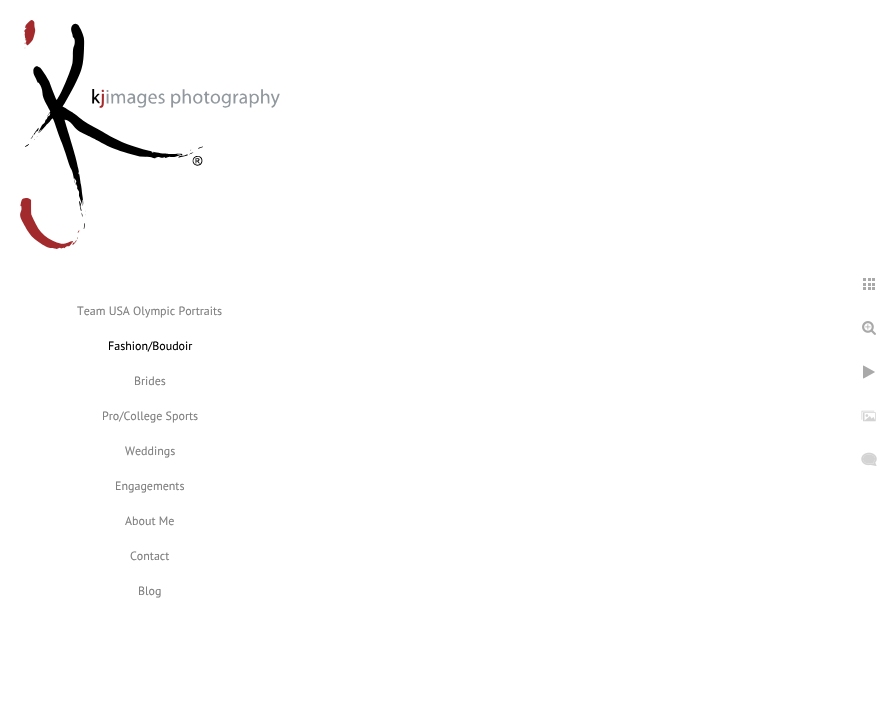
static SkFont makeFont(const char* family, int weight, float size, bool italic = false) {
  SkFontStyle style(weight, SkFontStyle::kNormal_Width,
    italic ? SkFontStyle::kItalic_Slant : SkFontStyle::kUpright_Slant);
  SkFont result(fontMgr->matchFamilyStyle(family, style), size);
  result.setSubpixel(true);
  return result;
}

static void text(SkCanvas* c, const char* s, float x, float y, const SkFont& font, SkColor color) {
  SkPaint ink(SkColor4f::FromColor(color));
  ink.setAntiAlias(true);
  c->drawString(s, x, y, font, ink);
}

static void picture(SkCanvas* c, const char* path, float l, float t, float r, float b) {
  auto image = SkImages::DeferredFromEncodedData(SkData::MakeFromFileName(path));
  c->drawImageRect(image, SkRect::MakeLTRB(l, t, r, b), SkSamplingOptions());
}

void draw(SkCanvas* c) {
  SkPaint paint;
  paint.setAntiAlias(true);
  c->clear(0xffffffff);
  picture(c, "img_01.png", 20, 20, 280, 249);
  SkFont face1 = makeFont("PT Sans", 400, 12);
  text(c, "Team USA Olympic Portraits", 77, 315, face1, 0xff808080);
  text(c, "Fashion/Boudoir", 108, 350, face1, 0xff000000);
  text(c, "Brides", 134, 385, face1, 0xff808080);
  text(c, "Pro/College Sports", 102, 420, face1, 0xff808080);
  text(c, "Weddings", 125, 455, face1, 0xff808080);
  text(c, "Engagements", 115, 490, face1, 0xff808080);
  text(c, "About Me", 125, 525, face1, 0xff808080);
  text(c, "Contact", 130, 560, face1, 0xff808080);
  text(c, "Blog", 138, 595, face1, 0xff808080);
  picture(c, "img_02.png", 863, 278, 875, 290);
  picture(c, "img_03.png", 862, 321, 876, 335);
  picture(c, "img_04.png", 863, 365, 875, 379);
  picture(c, "img_05.png", 861, 410, 876, 422);
  picture(c, "img_06.png", 861, 452, 877, 466);
}
